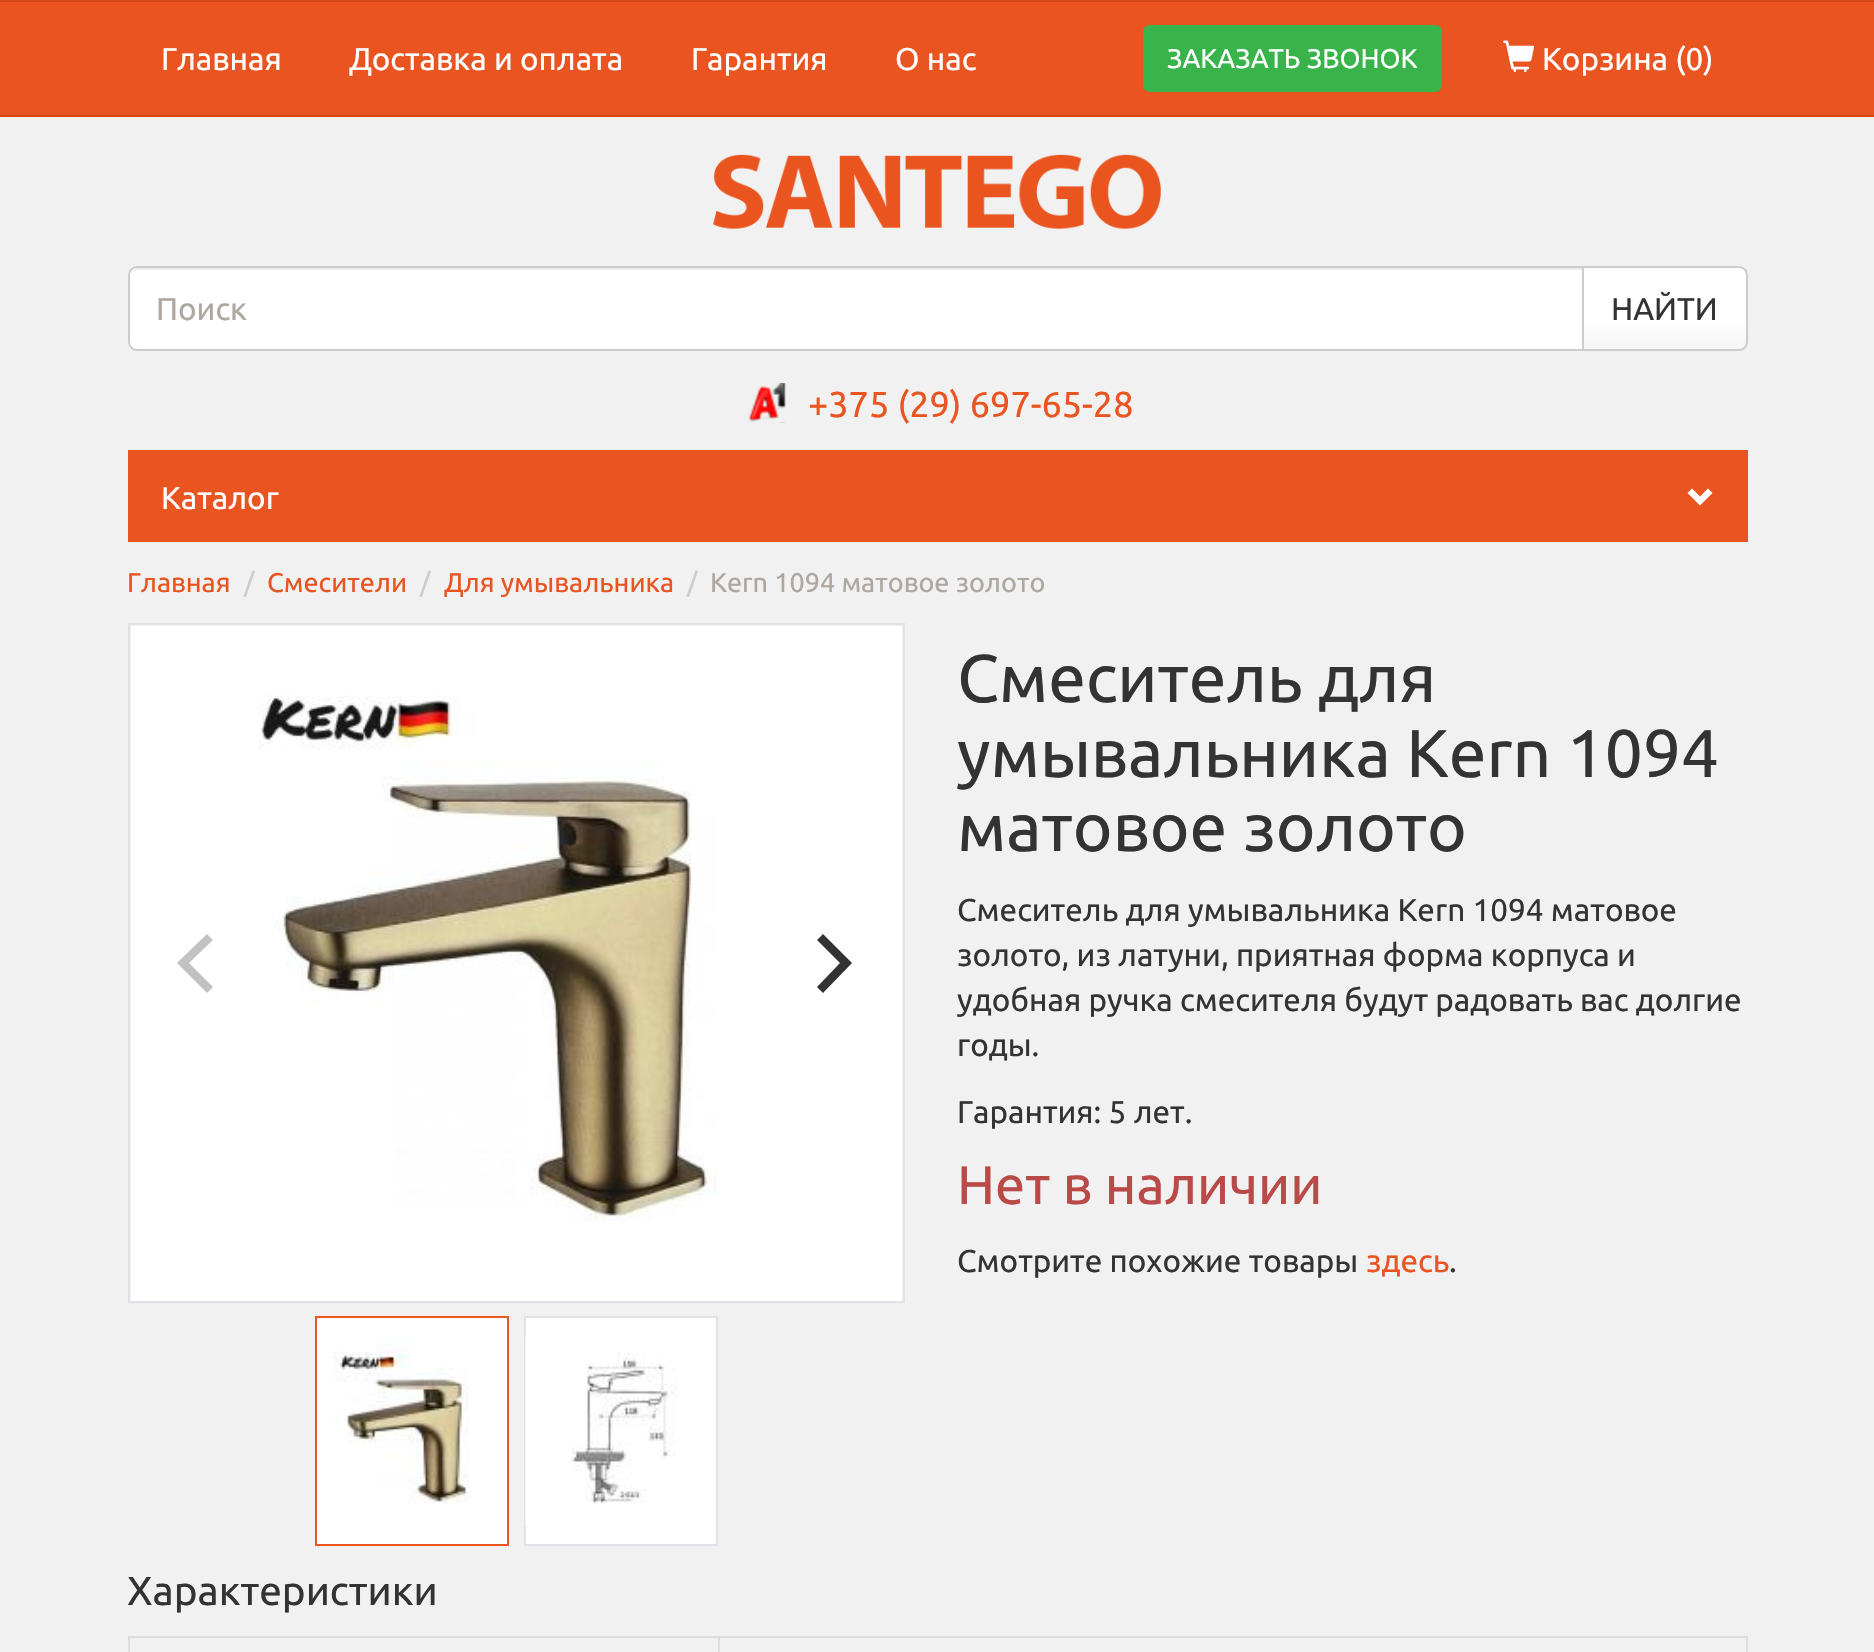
static SkFont makeFont(const char* family, int weight, float size, bool italic = false) {
  SkFontStyle style(weight, SkFontStyle::kNormal_Width,
    italic ? SkFontStyle::kItalic_Slant : SkFontStyle::kUpright_Slant);
  SkFont result(fontMgr->matchFamilyStyle(family, style), size);
  result.setSubpixel(true);
  return result;
}

static void text(SkCanvas* c, const char* s, float x, float y, const SkFont& font, SkColor color) {
  SkPaint ink(SkColor4f::FromColor(color));
  ink.setAntiAlias(true);
  c->drawString(s, x, y, font, ink);
}

static void box(SkCanvas* c, float l, float t, float r, float b, SkColor color) {
  SkPaint ink(SkColor4f::FromColor(color));
  ink.setAntiAlias(true);
  c->drawRect(SkRect::MakeLTRB(l, t, r, b), ink);
}

static void picture(SkCanvas* c, const char* path, float l, float t, float r, float b) {
  auto image = SkImages::DeferredFromEncodedData(SkData::MakeFromFileName(path));
  c->drawImageRect(image, SkRect::MakeLTRB(l, t, r, b), SkSamplingOptions());
}

void draw(SkCanvas* c) {
  SkPaint paint;
  paint.setAntiAlias(true);
  c->clear(0xfff1f1f1);
  box(c, 0, 2, 1874, 115, 0xffe95420);
  box(c, 0, 0, 1874, 2, 0xffd34615);
  box(c, 0, 115, 1874, 117, 0xffd34615);
  SkFont face1 = makeFont("Ubuntu", 400, 31.5f);
  text(c, "Главная", 161, 70, face1, 0xffffffff);
  text(c, "Доставка и оплата", 349, 70, face1, 0xffffffff);
  text(c, "Гарантия", 691, 70, face1, 0xffffffff);
  text(c, "О нас", 895, 70, face1, 0xffffffff);
  paint.setColor(0xff38b44a);
  c->drawRoundRect(SkRect::MakeLTRB(1144, 26, 1441, 91), 6, 6, paint);
  paint.setStyle(SkPaint::kStroke_Style);
  paint.setStrokeWidth(2);
  c->drawRoundRect(SkRect::MakeLTRB(1144, 26, 1441, 91), 6, 6, paint);
  SkFont face2 = makeFont("Ubuntu", 400, 27);
  text(c, "ЗАКАЗАТЬ ЗВОНОК", 1167, 68, face2, 0xffffffff);
  picture(c, "img_01.png", 1503, 40, 1534, 72);
  text(c, "Корзина (0)", 1542, 70, face1, 0xffffffff);
  picture(c, "img_02.png", 713, 154, 1161, 229);
  paint.setStyle(SkPaint::kFill_Style);
  paint.setColor(0xffffffff);
  c->drawPath(SkPathBuilder().moveTo(137, 266).lineTo(1584, 266).lineTo(1584, 351).lineTo(137, 351).cubicTo(132, 351, 128, 347, 128, 342).lineTo(128, 275).cubicTo(128, 270, 132, 266, 137, 266).close().detach(), paint);
  paint.setColor(0xffececec);
  c->drawPath(SkPathBuilder().moveTo(137, 270).lineTo(1582, 270).lineTo(1582, 268).lineTo(138, 268).cubicTo(135, 268, 132, 270, 131, 273).cubicTo(133, 271, 135, 270, 137, 270).close().detach(), paint);
  paint.setStyle(SkPaint::kStroke_Style);
  paint.setColor(0xffcccccc);
  c->drawPath(SkPathBuilder().moveTo(137, 267).lineTo(1583, 267).lineTo(1583, 350).lineTo(137, 350).cubicTo(132.5f, 350, 129, 346.5f, 129, 342).lineTo(129, 275).cubicTo(129, 270.5f, 132.5f, 267, 137, 267).close().detach(), paint);
  text(c, "Поиск", 156, 320, face1, 0xffaea79f);
  c->save();
  c->clipPath(SkPathBuilder().moveTo(1582, 266).lineTo(1739, 266).cubicTo(1744, 266, 1748, 270, 1748, 275).lineTo(1748, 342).cubicTo(1748, 347, 1744, 351, 1739, 351).lineTo(1582, 351).close().detach(), true);
  paint.setStyle(SkPaint::kFill_Style);
  {
    const SkColor colors[] = {0xffffffff, 0xffffffff, 0xfff5f5f5};
    const float stops[] = {0, 0.6f, 1};
    const SkPoint ends[] = {{1665, 268}, {1665, 349}};
    paint.setShader(SkGradientShader::MakeLinear(ends, colors, stops, 3, SkTileMode::kClamp));
    paint.setAlpha(255);
  }
  c->drawRect(SkRect::MakeLTRB(1584, 268, 1746, 349), paint);
  c->restore();
  paint.setStyle(SkPaint::kStroke_Style);
  paint.setShader(nullptr);
  paint.setColor(0xffcccccc);
  c->drawPath(SkPathBuilder().moveTo(1583, 267).lineTo(1739, 267).cubicTo(1743.5f, 267, 1747, 270.5f, 1747, 275).lineTo(1747, 342).cubicTo(1747, 346.5f, 1743.5f, 350, 1739, 350).lineTo(1583, 350).close().detach(), paint);
  text(c, "НАЙТИ", 1611, 320, face1, 0xff333333);
  picture(c, "img_03.png", 748, 383, 786, 423);
  SkFont face3 = makeFont("Ubuntu", 400, 36);
  text(c, "+375 (29) 697-65-28", 808, 417, face3, 0xffe95420);
  box(c, 128, 450, 1748, 542, 0xffe95420);
  text(c, "Каталог", 161, 509, face1, 0xffffffff);
  paint.setStyle(SkPaint::kFill_Style);
  paint.setColor(0xffffffff);
  c->drawPath(SkPathBuilder().moveTo(1712.5f, 493).lineTo(1700, 505.5f).lineTo(1687.5f, 493).lineTo(1692, 488.5f).lineTo(1700, 496.5f).lineTo(1708, 488.5f).close().detach(), paint);
  text(c, "Главная", 127, 592, face2, 0xffe95420);
  text(c, "/", 244, 592, face2, 0xffcccccc);
  text(c, "Смесители", 267, 592, face2, 0xffe95420);
  text(c, "/", 420, 592, face2, 0xffcccccc);
  text(c, "Для умывальника", 444, 592, face2, 0xffe95420);
  text(c, "/", 687, 592, face2, 0xffcccccc);
  text(c, "Kern 1094 матовое золото", 710, 592, face2, 0xffaea79f);
  paint.setStyle(SkPaint::kStroke_Style);
  paint.setColor(0xffe0e2e7);
  c->drawRect(SkRect::MakeLTRB(129, 624, 904, 1302), paint);
  box(c, 131, 626, 902, 1301, 0xffffffff);
  picture(c, "img_04.png", 258, 695, 718, 1222);
  paint.setStyle(SkPaint::kFill_Style);
  paint.setColor(0xffc2c2c2);
  c->drawPath(SkPathBuilder().moveTo(177, 963).lineTo(207, 993).lineTo(213, 987).lineTo(189, 963).lineTo(213, 940).lineTo(207, 934).close().detach(), paint);
  paint.setColor(0xff333333);
  c->drawPath(SkPathBuilder().moveTo(852, 963).lineTo(823, 934).lineTo(817, 940).lineTo(840, 963).lineTo(817, 987).lineTo(823, 993).close().detach(), paint);
  paint.setColor(0xffffffff);
  c->drawRect(SkRect::MakeLTRB(316, 1317, 508, 1545), paint);
  paint.setStyle(SkPaint::kStroke_Style);
  paint.setColor(0xffe95420);
  c->drawRect(SkRect::MakeLTRB(316, 1317, 508, 1545), paint);
  picture(c, "img_05.png", 333, 1336, 469, 1504);
  paint.setStyle(SkPaint::kFill_Style);
  paint.setColor(0xffffffff);
  c->drawRect(SkRect::MakeLTRB(525, 1317, 717, 1545), paint);
  paint.setStyle(SkPaint::kStroke_Style);
  paint.setColor(0xffe0e2e7);
  c->drawRect(SkRect::MakeLTRB(525, 1317, 717, 1545), paint);
  picture(c, "img_06.png", 525, 1336, 677, 1526);
  SkFont face4 = makeFont("Ubuntu", 400, 67.5f);
  text(c, "Смеситель для", 957, 702, face4, 0xff333333);
  text(c, "умывальника Kern 1094", 957, 777, face4, 0xff333333);
  text(c, "матовое золото", 957, 851, face4, 0xff333333);
  text(c, "Смеситель для умывальника Kern 1094 матовое", 957, 921, face1, 0xff333333);
  text(c, "золото, из латуни, приятная форма корпуса и", 957, 966, face1, 0xff333333);
  text(c, "удобная ручка смесителя будут радовать вас долгие", 957, 1011, face1, 0xff333333);
  text(c, "годы.", 957, 1056, face1, 0xff333333);
  text(c, "Гарантия: 5 лет.", 957, 1123, face1, 0xff333333);
  SkFont face5 = makeFont("Ubuntu", 400, 54);
  text(c, "Нет в наличии", 957, 1204, face5, 0xffb94a48);
  text(c, "Смотрите похожие товары", 957, 1272, face1, 0xff333333);
  text(c, "здесь", 1366, 1272, face1, 0xffe95420);
  text(c, ".", 1449, 1272, face1, 0xff333333);
  SkFont face6 = makeFont("Ubuntu", 400, 40.5f);
  text(c, "Характеристики", 127, 1605, face6, 0xff333333);
  box(c, 128, 1636, 1748, 1638, 0xffdddddd);
  box(c, 1746, 1636, 1748, 1652, 0xffdddddd);
  box(c, 128, 1636, 130, 1652, 0xffdddddd);
  box(c, 718, 1636, 720, 1652, 0xffdddddd);
}
